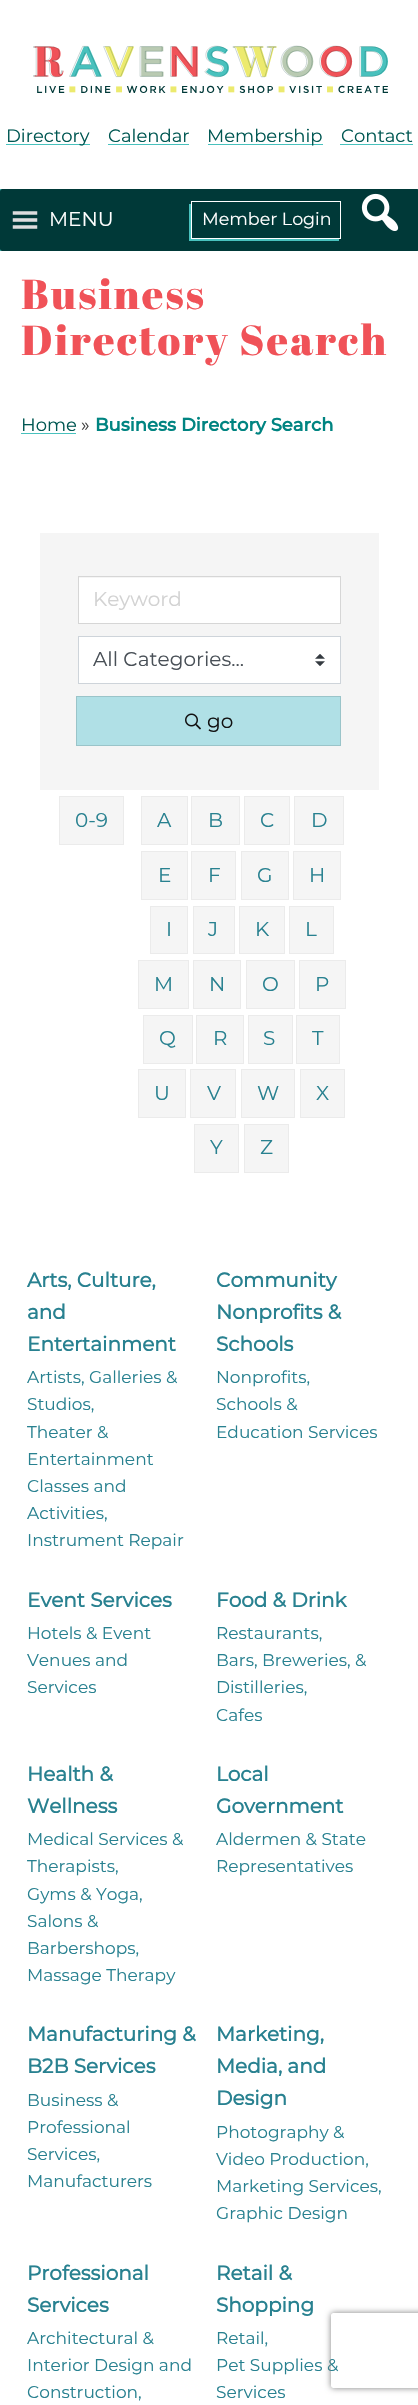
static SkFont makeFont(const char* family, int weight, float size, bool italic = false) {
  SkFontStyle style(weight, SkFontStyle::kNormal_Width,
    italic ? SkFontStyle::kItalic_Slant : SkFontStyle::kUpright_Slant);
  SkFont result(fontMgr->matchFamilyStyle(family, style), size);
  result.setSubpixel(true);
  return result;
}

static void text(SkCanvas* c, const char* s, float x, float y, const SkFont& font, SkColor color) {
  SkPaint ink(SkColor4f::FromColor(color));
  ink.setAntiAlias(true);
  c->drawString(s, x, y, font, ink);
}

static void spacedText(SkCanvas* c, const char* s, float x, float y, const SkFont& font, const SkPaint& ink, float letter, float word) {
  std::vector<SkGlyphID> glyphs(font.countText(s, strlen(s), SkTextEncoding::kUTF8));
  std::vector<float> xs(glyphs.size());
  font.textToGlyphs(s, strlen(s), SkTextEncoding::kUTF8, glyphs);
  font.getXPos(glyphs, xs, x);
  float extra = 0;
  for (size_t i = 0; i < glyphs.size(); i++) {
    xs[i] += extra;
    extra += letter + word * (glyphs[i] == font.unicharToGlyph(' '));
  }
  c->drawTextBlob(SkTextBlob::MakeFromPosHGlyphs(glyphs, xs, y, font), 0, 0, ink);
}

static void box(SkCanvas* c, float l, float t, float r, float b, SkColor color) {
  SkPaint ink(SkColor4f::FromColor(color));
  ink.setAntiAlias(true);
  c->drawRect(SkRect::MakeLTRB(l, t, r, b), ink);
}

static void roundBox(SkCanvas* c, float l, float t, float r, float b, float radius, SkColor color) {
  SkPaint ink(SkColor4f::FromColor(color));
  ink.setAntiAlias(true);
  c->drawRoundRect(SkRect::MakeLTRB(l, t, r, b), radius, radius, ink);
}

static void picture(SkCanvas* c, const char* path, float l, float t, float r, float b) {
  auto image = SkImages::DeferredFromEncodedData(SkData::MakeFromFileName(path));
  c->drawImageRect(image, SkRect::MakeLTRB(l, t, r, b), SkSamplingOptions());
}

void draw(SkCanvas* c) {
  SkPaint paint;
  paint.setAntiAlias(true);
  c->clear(0xffffffff);
  picture(c, "img_01.png", 33, 45, 388, 93);
  box(c, 6, 144, 90, 145, 0xff48c1bd);
  SkFont face1 = makeFont("Montserrat", 400, 18);
  text(c, "Directory", 6, 142, face1, 0xff005752);
  text(c, "Calendar", 108, 142, face1, 0xff005752);
  box(c, 108, 144, 189, 145, 0xff48c1bd);
  box(c, 208, 144, 323, 145, 0xff48c1bd);
  text(c, "Membership", 207, 142, face1, 0xff005752);
  text(c, "Contact", 341, 142, face1, 0xff005752);
  box(c, 340, 144, 413, 145, 0xff48c1bd);
  box(c, 0, 189, 418, 251, 0xff48c1bd);
  roundBox(c, 0, 189, 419, 251, 2.5f, 0xff003938);
  picture(c, "img_02.png", 12, 211, 38, 229);
  SkFont face2 = makeFont("Montserrat", 400, 20);
  text(c, "MENU", 49, 226, face2, 0xffffffff);
  paint.setColor(0xff48c1bd);
  c->drawPath(SkPathBuilder().moveTo(189, 204).lineTo(189, 241).lineTo(339, 241).lineTo(339, 239).lineTo(191, 239).lineTo(191, 204).close().detach(), paint);
  paint.setStyle(SkPaint::kStroke_Style);
  paint.setStrokeWidth(1);
  paint.setColor(0xffffffff);
  c->drawRect(SkRect::MakeLTRB(191.5f, 201.5f, 340.5f, 238.5f), paint);
  SkFont face3 = makeFont("Montserrat", 400, 17.5f);
  text(c, "Member Login", 202, 225, face3, 0xffffffff);
  picture(c, "img_03.png", 361, 193, 399, 231);
  SkFont face4 = makeFont("Abril Fatface", 400, 41.9f);
  paint.setStyle(SkPaint::kFill_Style);
  paint.setColor(0xfff05258);
  spacedText(c, "Business", 21, 309, face4, paint, 2.1f, 0);
  spacedText(c, "Directory Search", 21, 355, face4, paint, 2.1f, 0);
  text(c, "Home", 21, 431, face1, 0xff005752);
  box(c, 21, 433, 76, 434, 0xff48c1bd);
  text(c, "»", 81, 431, face1, 0xff404040);
  SkFont face5 = makeFont("Montserrat", 700, 18);
  text(c, "Business Directory Search", 95, 431, face5, 0xff008481);
  box(c, 40, 533, 379, 790, 0xfff5f5f5);
  box(c, 79, 578, 340, 623, 0xffffffff);
  paint.setStyle(SkPaint::kStroke_Style);
  paint.setColor(0xffd6d6d6);
  c->drawRect(SkRect::MakeLTRB(78.5f, 576.5f, 340.5f, 623.5f), paint);
  text(c, "Keyword", 93, 606, face2, 0xffd2d2d2);
  box(c, 79, 637, 340, 683, 0xffffffff);
  picture(c, "img_04.png", 315, 654, 325, 666);
  paint.setColor(0xffced4da);
  c->drawRect(SkRect::MakeLTRB(78.5f, 636.5f, 340.5f, 683.5f), paint);
  text(c, "All Categories...", 93, 666, face2, 0xff495057);
  paint.setStyle(SkPaint::kFill_Style);
  paint.setColor(0xffb0e0e6);
  c->drawRect(SkRect::MakeLTRB(76.5f, 696.5f, 340.5f, 745.5f), paint);
  paint.setStyle(SkPaint::kStroke_Style);
  paint.setColor(0xff9ac4c9);
  c->drawRect(SkRect::MakeLTRB(76.5f, 696.5f, 340.5f, 745.5f), paint);
  picture(c, "img_05.png", 185, 713, 201, 730);
  text(c, "go", 207, 728, face2, 0xff121212);
  paint.setStyle(SkPaint::kFill_Style);
  paint.setColor(0xfff5f5f5);
  c->drawRect(SkRect::MakeLTRB(59.5f, 796.5f, 123.5f, 844.5f), paint);
  paint.setStyle(SkPaint::kStroke_Style);
  paint.setColor(0xffebebeb);
  c->drawRect(SkRect::MakeLTRB(59.5f, 796.5f, 123.5f, 844.5f), paint);
  text(c, "0-9", 75, 827, face2, 0xff288190);
  paint.setStyle(SkPaint::kFill_Style);
  paint.setColor(0xfff5f5f5);
  c->drawRect(SkRect::MakeLTRB(141.5f, 796.5f, 187.5f, 844.5f), paint);
  paint.setStyle(SkPaint::kStroke_Style);
  paint.setColor(0xffebebeb);
  c->drawRect(SkRect::MakeLTRB(141.5f, 796.5f, 187.5f, 844.5f), paint);
  text(c, "A", 157, 827, face2, 0xff288190);
  paint.setStyle(SkPaint::kFill_Style);
  paint.setColor(0xfff5f5f5);
  c->drawRect(SkRect::MakeLTRB(191.5f, 796.5f, 239.5f, 844.5f), paint);
  paint.setStyle(SkPaint::kStroke_Style);
  paint.setColor(0xffebebeb);
  c->drawRect(SkRect::MakeLTRB(191.5f, 796.5f, 239.5f, 844.5f), paint);
  text(c, "B", 208, 827, face2, 0xff288190);
  paint.setStyle(SkPaint::kFill_Style);
  paint.setColor(0xfff5f5f5);
  c->drawRect(SkRect::MakeLTRB(244.5f, 796.5f, 289.5f, 844.5f), paint);
  paint.setStyle(SkPaint::kStroke_Style);
  paint.setColor(0xffebebeb);
  c->drawRect(SkRect::MakeLTRB(244.5f, 796.5f, 289.5f, 844.5f), paint);
  text(c, "C", 260, 827, face2, 0xff288190);
  paint.setStyle(SkPaint::kFill_Style);
  paint.setColor(0xfff5f5f5);
  c->drawRect(SkRect::MakeLTRB(294.5f, 796.5f, 343.5f, 844.5f), paint);
  paint.setStyle(SkPaint::kStroke_Style);
  paint.setColor(0xffebebeb);
  c->drawRect(SkRect::MakeLTRB(294.5f, 796.5f, 343.5f, 844.5f), paint);
  text(c, "D", 311, 827, face2, 0xff288190);
  paint.setStyle(SkPaint::kFill_Style);
  paint.setColor(0xfff5f5f5);
  c->drawRect(SkRect::MakeLTRB(141.5f, 851.5f, 187.5f, 899.5f), paint);
  paint.setStyle(SkPaint::kStroke_Style);
  paint.setColor(0xffebebeb);
  c->drawRect(SkRect::MakeLTRB(141.5f, 851.5f, 187.5f, 899.5f), paint);
  text(c, "E", 158, 882, face2, 0xff288190);
  paint.setStyle(SkPaint::kFill_Style);
  paint.setColor(0xfff5f5f5);
  c->drawRect(SkRect::MakeLTRB(191.5f, 851.5f, 235.5f, 899.5f), paint);
  paint.setStyle(SkPaint::kStroke_Style);
  paint.setColor(0xffebebeb);
  c->drawRect(SkRect::MakeLTRB(191.5f, 851.5f, 235.5f, 899.5f), paint);
  text(c, "F", 208, 882, face2, 0xff288190);
  paint.setStyle(SkPaint::kFill_Style);
  paint.setColor(0xfff5f5f5);
  c->drawRect(SkRect::MakeLTRB(241.5f, 851.5f, 288.5f, 899.5f), paint);
  paint.setStyle(SkPaint::kStroke_Style);
  paint.setColor(0xffebebeb);
  c->drawRect(SkRect::MakeLTRB(241.5f, 851.5f, 288.5f, 899.5f), paint);
  text(c, "G", 257, 882, face2, 0xff288190);
  paint.setStyle(SkPaint::kFill_Style);
  paint.setColor(0xfff5f5f5);
  c->drawRect(SkRect::MakeLTRB(293.5f, 851.5f, 340.5f, 899.5f), paint);
  paint.setStyle(SkPaint::kStroke_Style);
  paint.setColor(0xffebebeb);
  c->drawRect(SkRect::MakeLTRB(293.5f, 851.5f, 340.5f, 899.5f), paint);
  text(c, "H", 309, 882, face2, 0xff288190);
  paint.setStyle(SkPaint::kFill_Style);
  paint.setColor(0xfff5f5f5);
  c->drawRect(SkRect::MakeLTRB(150.5f, 906.5f, 187.5f, 953.5f), paint);
  paint.setStyle(SkPaint::kStroke_Style);
  paint.setColor(0xffebebeb);
  c->drawRect(SkRect::MakeLTRB(150.5f, 906.5f, 187.5f, 953.5f), paint);
  text(c, "I", 166, 936, face2, 0xff288190);
  paint.setStyle(SkPaint::kFill_Style);
  paint.setColor(0xfff5f5f5);
  c->drawRect(SkRect::MakeLTRB(193.5f, 906.5f, 234.5f, 953.5f), paint);
  paint.setStyle(SkPaint::kStroke_Style);
  paint.setColor(0xffebebeb);
  c->drawRect(SkRect::MakeLTRB(193.5f, 906.5f, 234.5f, 953.5f), paint);
  text(c, "J", 208, 936, face2, 0xff288190);
  paint.setStyle(SkPaint::kFill_Style);
  paint.setColor(0xfff5f5f5);
  c->drawRect(SkRect::MakeLTRB(239.5f, 906.5f, 284.5f, 953.5f), paint);
  paint.setStyle(SkPaint::kStroke_Style);
  paint.setColor(0xffebebeb);
  c->drawRect(SkRect::MakeLTRB(239.5f, 906.5f, 284.5f, 953.5f), paint);
  text(c, "K", 255, 936, face2, 0xff288190);
  paint.setStyle(SkPaint::kFill_Style);
  paint.setColor(0xfff5f5f5);
  c->drawRect(SkRect::MakeLTRB(289.5f, 906.5f, 333.5f, 953.5f), paint);
  paint.setStyle(SkPaint::kStroke_Style);
  paint.setColor(0xffebebeb);
  c->drawRect(SkRect::MakeLTRB(289.5f, 906.5f, 333.5f, 953.5f), paint);
  text(c, "L", 305, 936, face2, 0xff288190);
  paint.setStyle(SkPaint::kFill_Style);
  paint.setColor(0xfff5f5f5);
  c->drawRect(SkRect::MakeLTRB(138.5f, 960.5f, 188.5f, 1008.5f), paint);
  paint.setStyle(SkPaint::kStroke_Style);
  paint.setColor(0xffebebeb);
  c->drawRect(SkRect::MakeLTRB(138.5f, 960.5f, 188.5f, 1008.5f), paint);
  text(c, "M", 154, 991, face2, 0xff288190);
  paint.setStyle(SkPaint::kFill_Style);
  paint.setColor(0xfff5f5f5);
  c->drawRect(SkRect::MakeLTRB(193.5f, 960.5f, 240.5f, 1008.5f), paint);
  paint.setStyle(SkPaint::kStroke_Style);
  paint.setColor(0xffebebeb);
  c->drawRect(SkRect::MakeLTRB(193.5f, 960.5f, 240.5f, 1008.5f), paint);
  text(c, "N", 209, 991, face2, 0xff288190);
  paint.setStyle(SkPaint::kFill_Style);
  paint.setColor(0xfff5f5f5);
  c->drawRect(SkRect::MakeLTRB(246.5f, 960.5f, 294.5f, 1008.5f), paint);
  paint.setStyle(SkPaint::kStroke_Style);
  paint.setColor(0xffebebeb);
  c->drawRect(SkRect::MakeLTRB(246.5f, 960.5f, 294.5f, 1008.5f), paint);
  text(c, "O", 262, 991, face2, 0xff288190);
  paint.setStyle(SkPaint::kFill_Style);
  paint.setColor(0xfff5f5f5);
  c->drawRect(SkRect::MakeLTRB(299.5f, 960.5f, 345.5f, 1008.5f), paint);
  paint.setStyle(SkPaint::kStroke_Style);
  paint.setColor(0xffebebeb);
  c->drawRect(SkRect::MakeLTRB(299.5f, 960.5f, 345.5f, 1008.5f), paint);
  text(c, "P", 315, 991, face2, 0xff288190);
  paint.setStyle(SkPaint::kFill_Style);
  paint.setColor(0xfff5f5f5);
  c->drawRect(SkRect::MakeLTRB(143.5f, 1015.5f, 192.5f, 1063.5f), paint);
  paint.setStyle(SkPaint::kStroke_Style);
  paint.setColor(0xffebebeb);
  c->drawRect(SkRect::MakeLTRB(143.5f, 1015.5f, 192.5f, 1063.5f), paint);
  text(c, "Q", 159, 1045, face2, 0xff288190);
  paint.setStyle(SkPaint::kFill_Style);
  paint.setColor(0xfff5f5f5);
  c->drawRect(SkRect::MakeLTRB(196.5f, 1015.5f, 243.5f, 1063.5f), paint);
  paint.setStyle(SkPaint::kStroke_Style);
  paint.setColor(0xffebebeb);
  c->drawRect(SkRect::MakeLTRB(196.5f, 1015.5f, 243.5f, 1063.5f), paint);
  text(c, "R", 213, 1045, face2, 0xff288190);
  paint.setStyle(SkPaint::kFill_Style);
  paint.setColor(0xfff5f5f5);
  c->drawRect(SkRect::MakeLTRB(248.5f, 1015.5f, 292.5f, 1063.5f), paint);
  paint.setStyle(SkPaint::kStroke_Style);
  paint.setColor(0xffebebeb);
  c->drawRect(SkRect::MakeLTRB(248.5f, 1015.5f, 292.5f, 1063.5f), paint);
  text(c, "S", 263, 1045, face2, 0xff288190);
  paint.setStyle(SkPaint::kFill_Style);
  paint.setColor(0xfff5f5f5);
  c->drawRect(SkRect::MakeLTRB(296.5f, 1015.5f, 339.5f, 1063.5f), paint);
  paint.setStyle(SkPaint::kStroke_Style);
  paint.setColor(0xffebebeb);
  c->drawRect(SkRect::MakeLTRB(296.5f, 1015.5f, 339.5f, 1063.5f), paint);
  text(c, "T", 312, 1045, face2, 0xff288190);
  paint.setStyle(SkPaint::kFill_Style);
  paint.setColor(0xfff5f5f5);
  c->drawRect(SkRect::MakeLTRB(138.5f, 1069.5f, 185.5f, 1117.5f), paint);
  paint.setStyle(SkPaint::kStroke_Style);
  paint.setColor(0xffebebeb);
  c->drawRect(SkRect::MakeLTRB(138.5f, 1069.5f, 185.5f, 1117.5f), paint);
  text(c, "U", 154, 1100, face2, 0xff288190);
  paint.setStyle(SkPaint::kFill_Style);
  paint.setColor(0xfff5f5f5);
  c->drawRect(SkRect::MakeLTRB(190.5f, 1069.5f, 235.5f, 1117.5f), paint);
  paint.setStyle(SkPaint::kStroke_Style);
  paint.setColor(0xffebebeb);
  c->drawRect(SkRect::MakeLTRB(190.5f, 1069.5f, 235.5f, 1117.5f), paint);
  text(c, "V", 207, 1100, face2, 0xff288190);
  paint.setStyle(SkPaint::kFill_Style);
  paint.setColor(0xfff5f5f5);
  c->drawRect(SkRect::MakeLTRB(241.5f, 1069.5f, 294.5f, 1117.5f), paint);
  paint.setStyle(SkPaint::kStroke_Style);
  paint.setColor(0xffebebeb);
  c->drawRect(SkRect::MakeLTRB(241.5f, 1069.5f, 294.5f, 1117.5f), paint);
  text(c, "W", 257, 1100, face2, 0xff288190);
  paint.setStyle(SkPaint::kFill_Style);
  paint.setColor(0xfff5f5f5);
  c->drawRect(SkRect::MakeLTRB(300.5f, 1069.5f, 344.5f, 1117.5f), paint);
  paint.setStyle(SkPaint::kStroke_Style);
  paint.setColor(0xffebebeb);
  c->drawRect(SkRect::MakeLTRB(300.5f, 1069.5f, 344.5f, 1117.5f), paint);
  text(c, "X", 316, 1100, face2, 0xff288190);
  paint.setStyle(SkPaint::kFill_Style);
  paint.setColor(0xfff5f5f5);
  c->drawRect(SkRect::MakeLTRB(194.5f, 1124.5f, 238.5f, 1172.5f), paint);
  paint.setStyle(SkPaint::kStroke_Style);
  paint.setColor(0xffebebeb);
  c->drawRect(SkRect::MakeLTRB(194.5f, 1124.5f, 238.5f, 1172.5f), paint);
  text(c, "Y", 210, 1154, face2, 0xff288190);
  paint.setStyle(SkPaint::kFill_Style);
  paint.setColor(0xfff5f5f5);
  c->drawRect(SkRect::MakeLTRB(244.5f, 1124.5f, 288.5f, 1172.5f), paint);
  paint.setStyle(SkPaint::kStroke_Style);
  paint.setColor(0xffebebeb);
  c->drawRect(SkRect::MakeLTRB(244.5f, 1124.5f, 288.5f, 1172.5f), paint);
  text(c, "Z", 260, 1154, face2, 0xff288190);
  SkFont face6 = makeFont("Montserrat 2", 700, 20);
  text(c, "Arts, Culture,", 27, 1287, face6, 0xff288190);
  text(c, "and", 27, 1319, face6, 0xff288190);
  text(c, "Entertainment", 27, 1351, face6, 0xff288190);
  SkFont face7 = makeFont("Montserrat", 400, 17);
  text(c, "Artists, Galleries &", 27, 1383, face7, 0xff288190);
  text(c, "Studios,", 27, 1410, face7, 0xff288190);
  text(c, "Theater &", 27, 1438, face7, 0xff288190);
  text(c, "Entertainment", 27, 1465, face7, 0xff288190);
  text(c, "Classes and", 27, 1492, face7, 0xff288190);
  text(c, "Activities,", 27, 1519, face7, 0xff288190);
  text(c, "Instrument Repair", 27, 1546, face7, 0xff288190);
  text(c, "Community", 216, 1287, face6, 0xff288190);
  text(c, "Nonprofits &", 216, 1319, face6, 0xff288190);
  text(c, "Schools", 216, 1351, face6, 0xff288190);
  text(c, "Nonprofits,", 216, 1383, face7, 0xff288190);
  text(c, "Schools &", 216, 1410, face7, 0xff288190);
  text(c, "Education Services", 216, 1438, face7, 0xff288190);
  text(c, "Event Services", 27, 1607, face6, 0xff288190);
  text(c, "Hotels & Event", 27, 1639, face7, 0xff288190);
  text(c, "Venues and", 27, 1666, face7, 0xff288190);
  text(c, "Services", 27, 1693, face7, 0xff288190);
  text(c, "Food & Drink", 216, 1607, face6, 0xff288190);
  text(c, "Restaurants,", 216, 1639, face7, 0xff288190);
  text(c, "Bars, Breweries, &", 216, 1666, face7, 0xff288190);
  text(c, "Distilleries,", 216, 1693, face7, 0xff288190);
  text(c, "Cafes", 216, 1721, face7, 0xff288190);
  text(c, "Health &", 27, 1781, face6, 0xff288190);
  text(c, "Wellness", 27, 1813, face6, 0xff288190);
  text(c, "Medical Services &", 27, 1845, face7, 0xff288190);
  text(c, "Therapists,", 27, 1872, face7, 0xff288190);
  text(c, "Gyms & Yoga,", 27, 1900, face7, 0xff288190);
  text(c, "Salons &", 27, 1927, face7, 0xff288190);
  text(c, "Barbershops,", 27, 1954, face7, 0xff288190);
  text(c, "Massage Therapy", 27, 1981, face7, 0xff288190);
  text(c, "Local", 216, 1781, face6, 0xff288190);
  text(c, "Government", 216, 1813, face6, 0xff288190);
  text(c, "Aldermen & State", 216, 1845, face7, 0xff288190);
  text(c, "Representatives", 216, 1872, face7, 0xff288190);
  text(c, "Manufacturing &", 27, 2041, face6, 0xff288190);
  text(c, "B2B Services", 27, 2073, face6, 0xff288190);
  text(c, "Business &", 27, 2106, face7, 0xff288190);
  text(c, "Professional", 27, 2133, face7, 0xff288190);
  text(c, "Services,", 27, 2160, face7, 0xff288190);
  text(c, "Manufacturers", 27, 2187, face7, 0xff288190);
  text(c, "Marketing,", 216, 2041, face6, 0xff288190);
  text(c, "Media, and", 216, 2073, face6, 0xff288190);
  text(c, "Design", 216, 2105, face6, 0xff288190);
  text(c, "Photography &", 216, 2138, face7, 0xff288190);
  text(c, "Video Production,", 216, 2165, face7, 0xff288190);
  text(c, "Marketing Services,", 216, 2192, face7, 0xff288190);
  text(c, "Graphic Design", 216, 2219, face7, 0xff288190);
  text(c, "Professional", 27, 2280, face6, 0xff288190);
  text(c, "Services", 27, 2312, face6, 0xff288190);
  text(c, "Architectural &", 27, 2344, face7, 0xff288190);
  text(c, "Interior Design and", 27, 2371, face7, 0xff288190);
  text(c, "Construction,", 27, 2398, face7, 0xff288190);
  text(c, "Retail &", 216, 2280, face6, 0xff288190);
  text(c, "Shopping", 216, 2312, face6, 0xff288190);
  text(c, "Retail,", 216, 2344, face7, 0xff288190);
  text(c, "Pet Supplies &", 216, 2371, face7, 0xff288190);
  text(c, "Services", 216, 2398, face7, 0xff288190);
  c->save();
  c->clipPath(SkPathBuilder(SkPathFillType::kEvenOdd).moveTo(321, 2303).lineTo(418, 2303).lineTo(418, 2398).lineTo(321, 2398).close().moveTo(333.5f, 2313).lineTo(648.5f, 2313).cubicTo(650, 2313, 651, 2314, 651, 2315.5f).lineTo(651, 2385.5f).cubicTo(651, 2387, 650, 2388, 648.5f, 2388).lineTo(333.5f, 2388).cubicTo(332, 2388, 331, 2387, 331, 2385.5f).lineTo(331, 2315.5f).cubicTo(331, 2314, 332, 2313, 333.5f, 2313).close().detach(), true);
  paint.setStyle(SkPaint::kFill_Style);
  paint.setColor(0xff808080);
  paint.setMaskFilter(SkMaskFilter::MakeBlur(kNormal_SkBlurStyle, 3));
  c->drawRoundRect(SkRect::MakeLTRB(331, 2313, 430, 2388), 2.5f, 2.5f, paint);
  paint.setMaskFilter(nullptr);
  c->restore();
}
